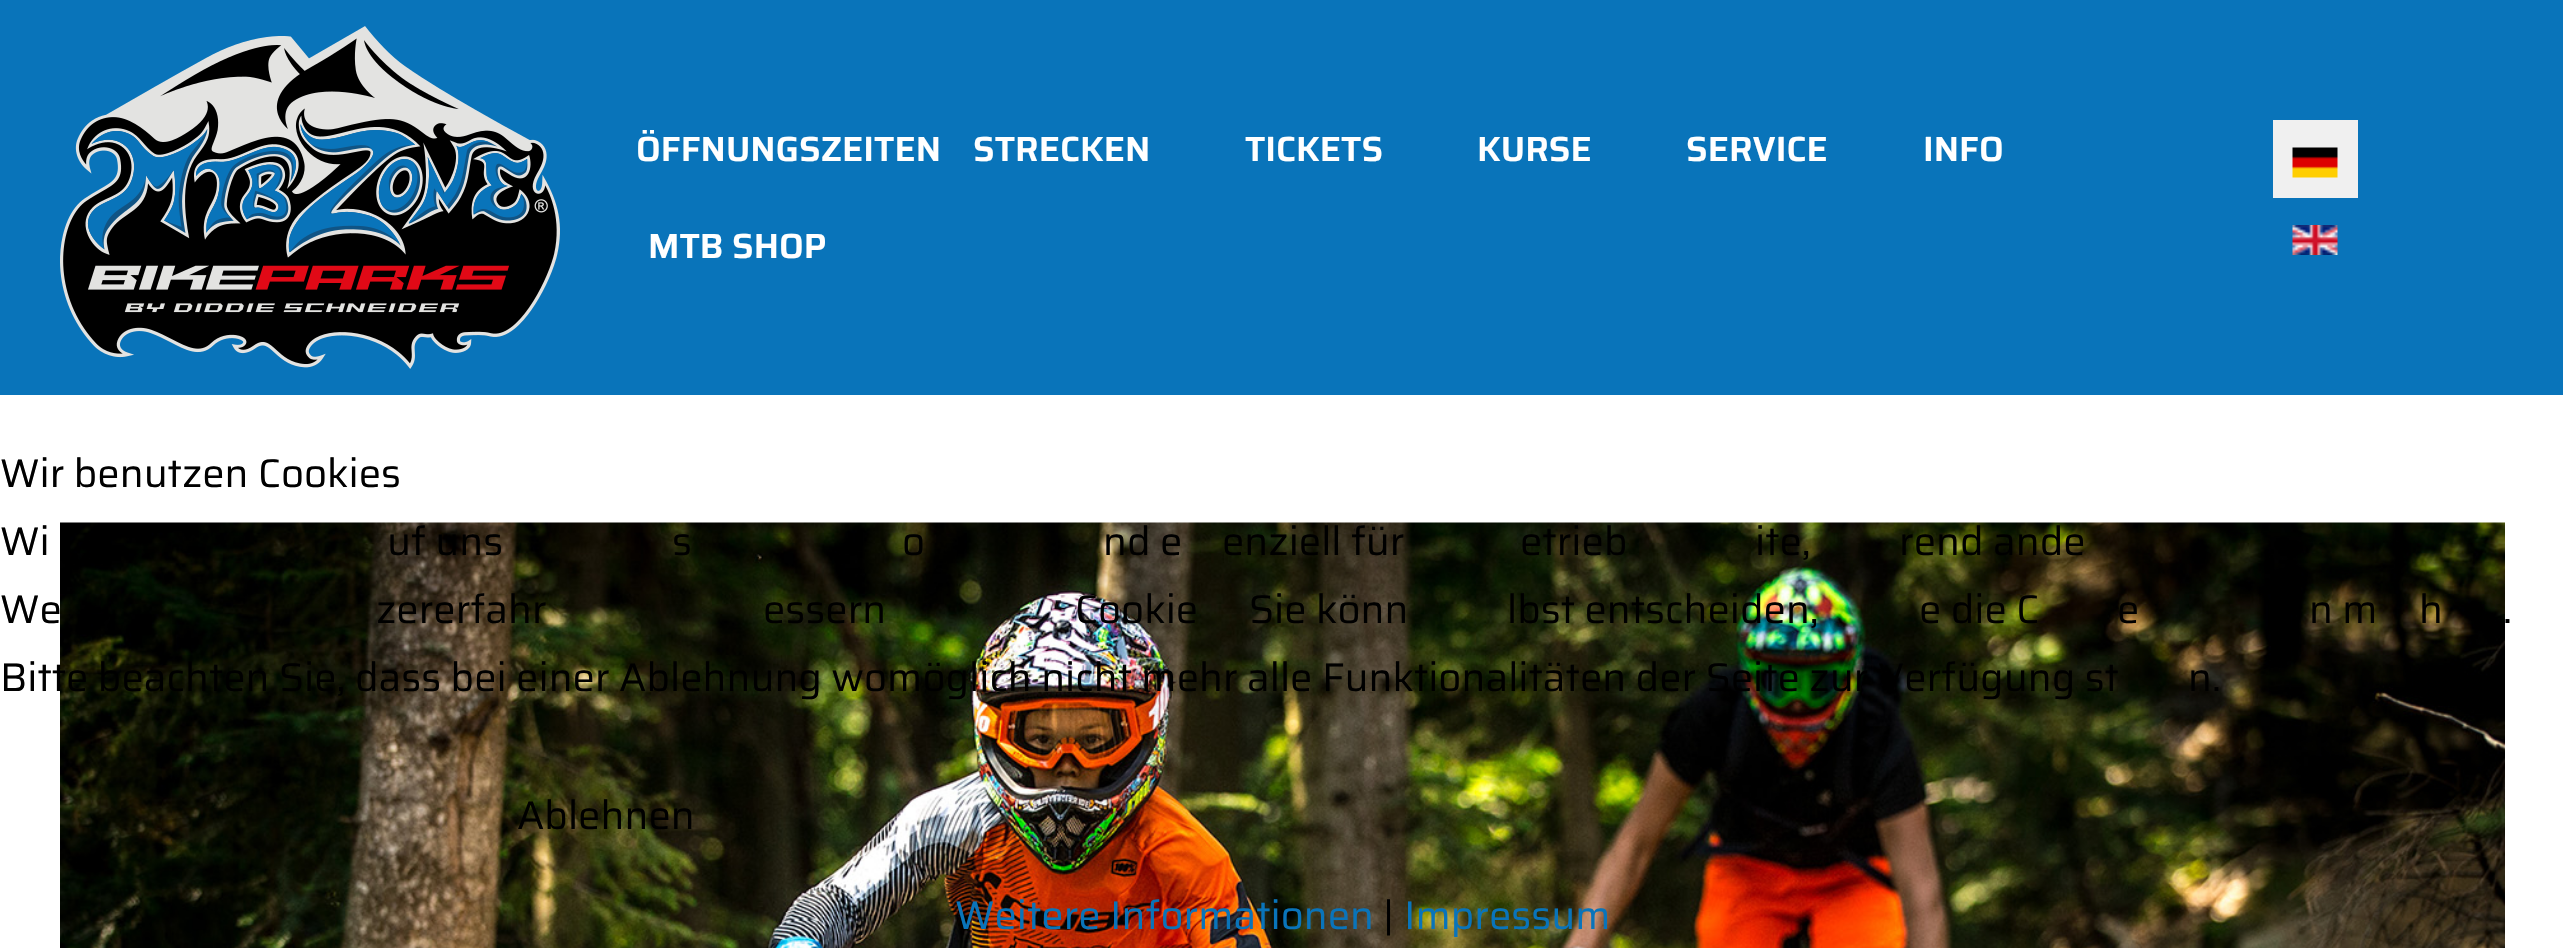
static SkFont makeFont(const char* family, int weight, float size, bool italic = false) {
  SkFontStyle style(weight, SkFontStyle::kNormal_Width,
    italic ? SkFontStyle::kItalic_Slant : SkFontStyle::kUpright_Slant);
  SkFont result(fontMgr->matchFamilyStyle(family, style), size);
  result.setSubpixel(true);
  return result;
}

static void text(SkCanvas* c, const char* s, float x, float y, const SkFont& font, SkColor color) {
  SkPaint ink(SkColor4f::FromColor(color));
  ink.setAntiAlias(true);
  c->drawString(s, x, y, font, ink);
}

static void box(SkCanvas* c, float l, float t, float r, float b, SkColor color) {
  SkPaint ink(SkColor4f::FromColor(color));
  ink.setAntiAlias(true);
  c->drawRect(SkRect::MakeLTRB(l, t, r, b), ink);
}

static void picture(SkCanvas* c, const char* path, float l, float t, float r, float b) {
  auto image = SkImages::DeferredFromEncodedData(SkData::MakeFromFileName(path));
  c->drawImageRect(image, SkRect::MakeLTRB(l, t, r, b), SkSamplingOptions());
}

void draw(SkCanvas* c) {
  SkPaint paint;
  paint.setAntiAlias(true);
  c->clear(0xffffffff);
  box(c, 0, 0, 2563, 395, 0xff0974ba);
  picture(c, "img_01.png", 60, 26, 560, 369);
  SkFont face1 = makeFont("Saira", 100, 35);
  text(c, "ÖFFNUNGSZEITEN", 636, 161, face1, 0xffffffff);
  text(c, "STRECKEN", 973, 161, face1, 0xffffffff);
  text(c, "TICKETS", 1245, 161, face1, 0xffffffff);
  text(c, "KURSE", 1477, 161, face1, 0xffffffff);
  text(c, "SERVICE", 1686, 161, face1, 0xffffffff);
  text(c, "INFO", 1923, 161, face1, 0xffffffff);
  text(c, "MTB SHOP", 648, 258, face1, 0xffffffff);
  box(c, 2273, 120, 2358, 198, 0xfff0f0f0);
  picture(c, "img_02.png", 2292, 147, 2338, 178);
  picture(c, "img_03.png", 2292, 225, 2338, 255);
  picture(c, "img_04.png", 60, 522, 2505, 948);
  SkFont face2 = makeFont("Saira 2", 100, 40);
  text(c, "Wir benutzen Cookies", 0, 487, face2, 0xff000000);
  text(c, "Wi", 0, 555, face2, 0xff000000);
  text(c, "uf uns", 387, 555, face2, 0xff000000);
  text(c, "s", 672, 555, face2, 0xff000000);
  text(c, "o", 902, 555, face2, 0xff000000);
  text(c, "nd e", 1103, 555, face2, 0xff000000);
  text(c, "enziell für", 1222, 555, face2, 0xff000000);
  text(c, "etrieb", 1520, 555, face2, 0xff000000);
  text(c, "ite,", 1755, 555, face2, 0xff000000);
  text(c, "rend ande", 1899, 555, face2, 0xff000000);
  text(c, "We", 0, 623, face2, 0xff000000);
  text(c, "zererfahr", 376, 623, face2, 0xff000000);
  text(c, "essern", 763, 623, face2, 0xff000000);
  text(c, "Cookie", 1075, 623, face2, 0xff000000);
  text(c, "Sie könn", 1249, 623, face2, 0xff000000);
  text(c, "lbst entscheiden,", 1507, 623, face2, 0xff000000);
  text(c, "e die C", 1919, 623, face2, 0xff000000);
  text(c, "e", 2117, 623, face2, 0xff000000);
  text(c, "n m", 2309, 623, face2, 0xff000000);
  text(c, "h", 2419, 623, face2, 0xff000000);
  text(c, ".", 2503, 623, face2, 0xff000000);
  text(c, "Bitte beachten Sie, dass bei einer Ablehnung womöglich nicht mehr alle Funktionalitäten der Seite zur Verfügung st", 0, 691, face2, 0xff000000);
  text(c, "n.", 2188, 691, face2, 0xff000000);
  text(c, "Ablehnen", 517, 829, face2, 0xff000000);
  text(c, "Weitere Informationen", 955, 929, face2, 0xff0974ba);
  text(c, "|", 1383, 929, face2, 0xff000000);
  text(c, "Impressum", 1404, 929, face2, 0xff0974ba);
}
